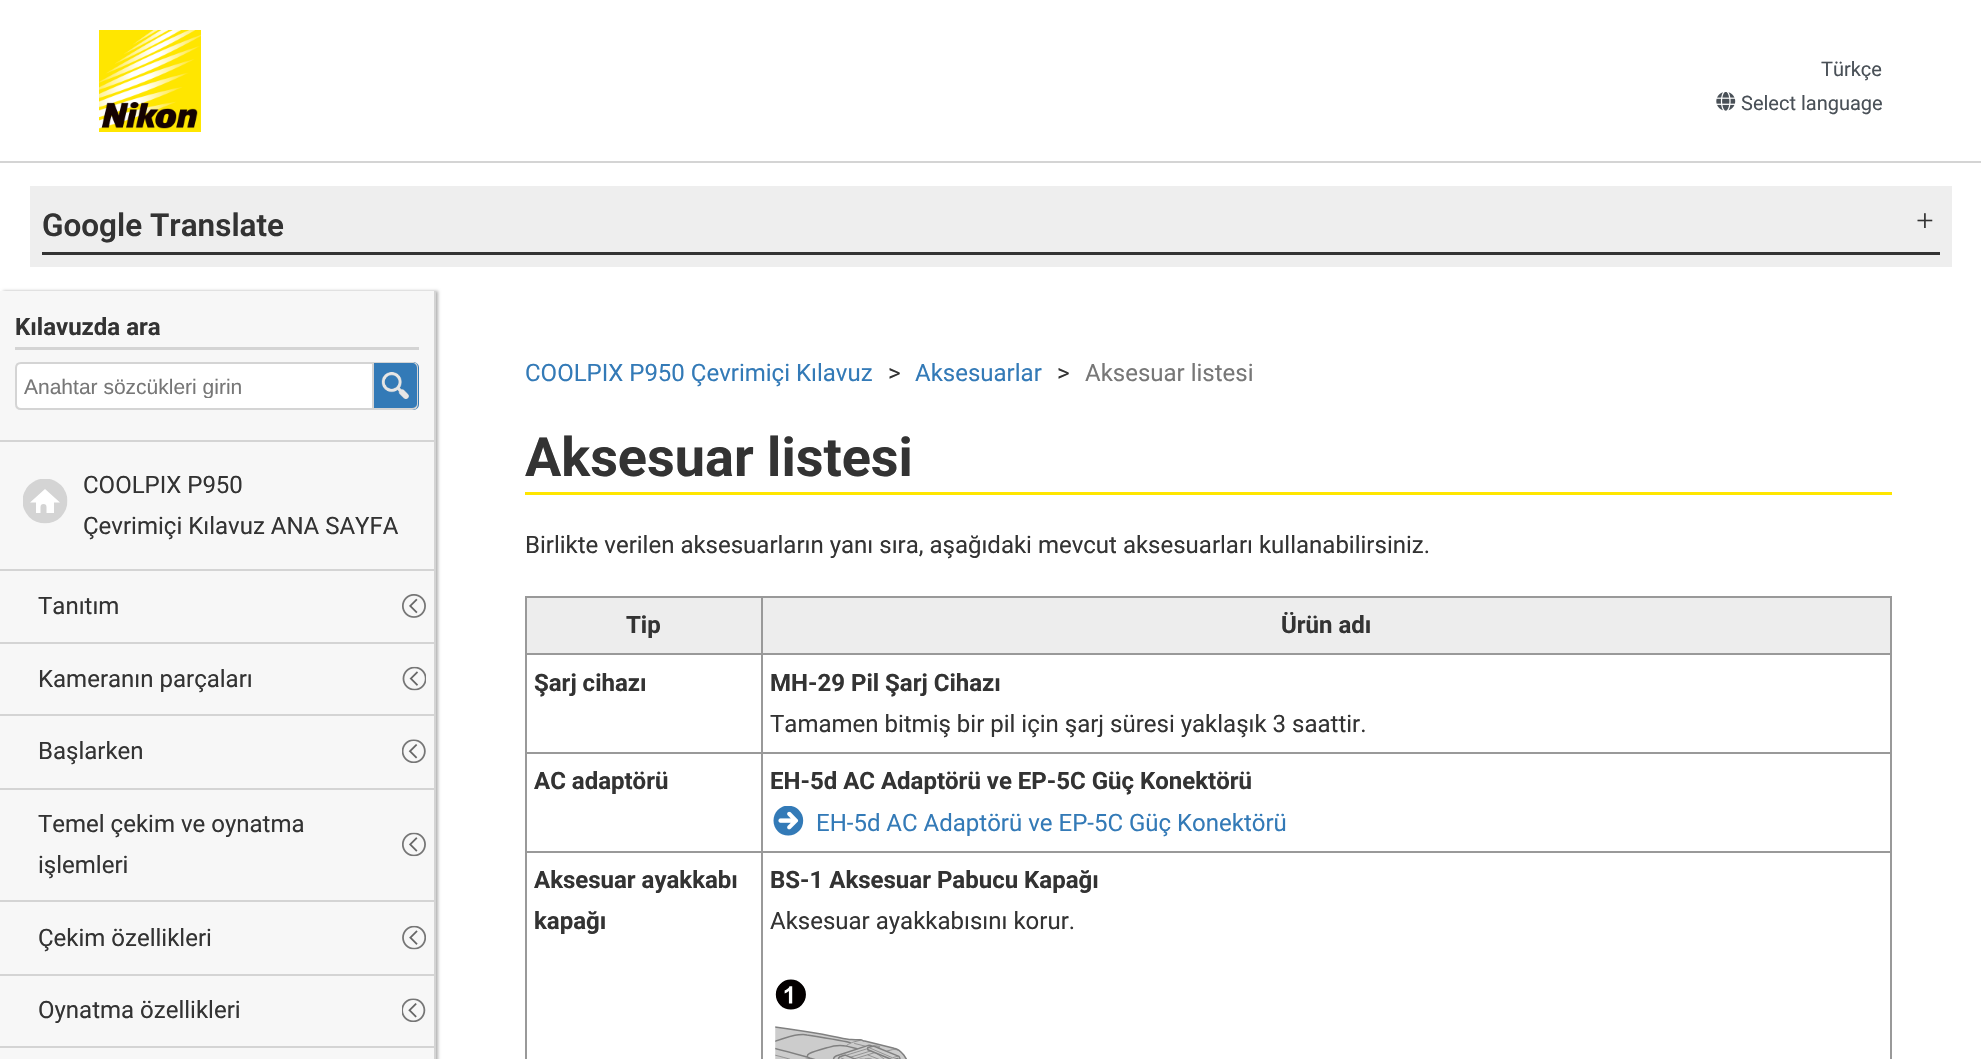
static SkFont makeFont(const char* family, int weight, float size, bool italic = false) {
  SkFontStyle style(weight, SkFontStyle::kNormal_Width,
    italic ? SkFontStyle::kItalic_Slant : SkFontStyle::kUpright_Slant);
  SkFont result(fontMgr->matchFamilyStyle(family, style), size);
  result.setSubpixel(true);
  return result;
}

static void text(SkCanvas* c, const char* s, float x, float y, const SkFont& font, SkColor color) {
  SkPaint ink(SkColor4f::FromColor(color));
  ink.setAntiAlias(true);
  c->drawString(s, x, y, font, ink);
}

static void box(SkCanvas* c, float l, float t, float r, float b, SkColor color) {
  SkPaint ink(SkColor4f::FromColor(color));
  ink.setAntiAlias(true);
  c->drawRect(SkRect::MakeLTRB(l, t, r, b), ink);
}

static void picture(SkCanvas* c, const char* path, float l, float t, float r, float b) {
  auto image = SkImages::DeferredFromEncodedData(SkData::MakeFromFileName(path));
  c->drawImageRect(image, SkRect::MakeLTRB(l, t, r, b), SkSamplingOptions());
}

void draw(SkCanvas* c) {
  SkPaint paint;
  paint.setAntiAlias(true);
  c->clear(0xffffffff);
  box(c, 0, 161, 1981, 163, 0xffd4d4d4);
  picture(c, "img_01.png", 99, 30, 201, 132);
  SkFont face1 = makeFont("Roboto", 400, 20);
  text(c, "Türkçe", 1821, 76, face1, 0xff495057);
  picture(c, "img_02.png", 1716, 92, 1736, 111);
  text(c, "Select language", 1741, 110, face1, 0xff495057);
  box(c, 30, 186, 1952, 267, 0xffeeeeee);
  box(c, 42, 252, 1940, 255, 0xff333333);
  SkFont face2 = makeFont("Roboto", 600, 31.5f);
  text(c, "Google Translate", 42, 236, face2, 0xff333333);
  SkFont face3 = makeFont("Liberation Serif", 400, 31.5f);
  text(c, "+", 1916, 231, face3, 0xff333333);
  paint.setColor(0x4d000000);
  paint.setMaskFilter(SkMaskFilter::MakeBlur(kNormal_SkBlurStyle, 1.5f));
  c->drawRect(SkRect::MakeLTRB(3, 291, 438, 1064), paint);
  paint.setMaskFilter(nullptr);
  box(c, 0, 291, 434, 1059, 0xfff7f7f7);
  box(c, 434, 291, 436, 1059, 0xffd4d4d4);
  box(c, 0, 569, 434, 571, 0xffd4d4d4);
  box(c, 15, 347, 419, 350, 0xffd4d4d4);
  SkFont face4 = makeFont("Roboto", 700, 24);
  text(c, "Kılavuzda ara", 15, 335, face4, 0xff333333);
  paint.setColor(0xffffffff);
  c->drawPath(SkPathBuilder().moveTo(21, 363).lineTo(373, 363).lineTo(373, 409).lineTo(21, 409).cubicTo(18, 409, 16, 407, 16, 404).lineTo(16, 368).cubicTo(16, 365, 18, 363, 21, 363).close().detach(), paint);
  paint.setStyle(SkPaint::kStroke_Style);
  paint.setStrokeWidth(2);
  paint.setColor(0xffd4d4d4);
  c->drawPath(SkPathBuilder().moveTo(21, 363).lineTo(373, 363).lineTo(373, 409).lineTo(21, 409).cubicTo(18, 409, 16, 407, 16, 404).lineTo(16, 368).cubicTo(16, 365, 18, 363, 21, 363).close().detach(), paint);
  c->save();
  c->clipRect(SkRect::MakeLTRB(24, 374, 344, 398));
  SkFont face5 = makeFont("Liberation Sans", 400, 21);
  text(c, "Anahtar sözcükleri girin", 24, 394, face5, 0xff777777);
  c->restore();
  paint.setStyle(SkPaint::kFill_Style);
  paint.setColor(0xff337ab7);
  c->drawPath(SkPathBuilder().moveTo(374, 362).lineTo(413, 362).cubicTo(416.5f, 362, 419, 364.5f, 419, 368).lineTo(419, 404).cubicTo(419, 407.5f, 416.5f, 410, 413, 410).lineTo(374, 410).close().detach(), paint);
  picture(c, "img_03.png", 381, 372, 409, 399);
  paint.setColor(0xffd4d4d4);
  c->drawPath(SkPathBuilder(SkPathFillType::kEvenOdd).moveTo(374, 362).lineTo(412, 362).cubicTo(416, 362, 418, 364, 418, 368).lineTo(418, 404).cubicTo(418, 407, 416, 410, 412, 410).lineTo(374, 410).close().moveTo(374, 363).lineTo(412, 363).cubicTo(415, 363, 417, 365, 417, 368).lineTo(417, 404).cubicTo(417, 406, 415, 408, 412, 408).lineTo(374, 408).close().detach(), paint);
  box(c, 0, 440, 434, 442, 0xffd4d4d4);
  picture(c, "img_04.png", 23, 479, 68, 524);
  SkFont face6 = makeFont("Roboto", 400, 24);
  text(c, "COOLPIX P950", 83, 493, face6, 0xff333333);
  text(c, "Çevrimiçi Kılavuz ANA SAYFA", 83, 534, face6, 0xff333333);
  box(c, 0, 642, 434, 644, 0xffd4d4d4);
  text(c, "Tanıtım", 38, 614, face6, 0xff333333);
  picture(c, "img_05.png", 402, 594, 426, 618);
  box(c, 0, 714, 434, 716, 0xffd4d4d4);
  text(c, "Kameranın parçaları", 38, 687, face6, 0xff333333);
  picture(c, "img_06.png", 402, 666, 426, 691);
  box(c, 0, 788, 434, 790, 0xffd4d4d4);
  text(c, "Başlarken", 38, 759, face6, 0xff333333);
  picture(c, "img_07.png", 402, 739, 426, 763);
  box(c, 0, 900, 434, 902, 0xffd4d4d4);
  text(c, "Temel çekim ve oynatma", 38, 832, face6, 0xff333333);
  picture(c, "img_08.png", 402, 832, 426, 857);
  text(c, "işlemleri", 38, 873, face6, 0xff333333);
  box(c, 0, 974, 434, 976, 0xffd4d4d4);
  text(c, "Çekim özellikleri", 38, 946, face6, 0xff333333);
  picture(c, "img_09.png", 402, 925, 426, 950);
  box(c, 0, 1046, 434, 1048, 0xffd4d4d4);
  text(c, "Oynatma özellikleri", 38, 1018, face6, 0xff333333);
  picture(c, "img_10.png", 402, 998, 426, 1022);
  text(c, "COOLPIX P950 Çevrimiçi Kılavuz", 525, 381, face6, 0xff337ab7);
  text(c, ">", 888, 381, face6, 0xff333333);
  text(c, "Aksesuarlar", 915, 381, face6, 0xff337ab7);
  text(c, ">", 1057, 381, face6, 0xff333333);
  text(c, "Aksesuar listesi", 1085, 381, face6, 0xff777777);
  box(c, 525, 492, 1892, 495, 0xffffe600);
  SkFont face7 = makeFont("Roboto", 700, 54);
  text(c, "Aksesuar listesi", 525, 476, face7, 0xff333333);
  text(c, "Birlikte verilen aksesuarların yanı sıra, aşağıdaki mevcut aksesuarları kullanabilirsiniz.", 525, 553, face6, 0xff333333);
  box(c, 527, 598, 761, 653, 0xffededed);
  box(c, 761, 596, 1892, 598, 0xff999999);
  box(c, 761, 653, 1892, 655, 0xff999999);
  box(c, 761, 752, 1892, 754, 0xff999999);
  box(c, 761, 851, 1892, 853, 0xff999999);
  box(c, 761, 851, 763, 1059, 0xff999999);
  box(c, 525, 851, 762, 853, 0xff999999);
  box(c, 761, 752, 763, 852, 0xff999999);
  box(c, 525, 752, 762, 754, 0xff999999);
  box(c, 761, 653, 763, 753, 0xff999999);
  box(c, 525, 653, 762, 655, 0xff999999);
  box(c, 761, 596, 763, 654, 0xff999999);
  box(c, 525, 596, 762, 598, 0xff999999);
  box(c, 525, 851, 527, 1059, 0xff999999);
  box(c, 525, 752, 527, 852, 0xff999999);
  box(c, 525, 653, 527, 753, 0xff999999);
  box(c, 525, 596, 527, 654, 0xff999999);
  text(c, "Tip", 626, 633, face4, 0xff333333);
  box(c, 763, 598, 1890, 653, 0xffededed);
  box(c, 1890, 851, 1892, 1059, 0xff999999);
  box(c, 1890, 752, 1892, 852, 0xff999999);
  box(c, 1890, 653, 1892, 753, 0xff999999);
  box(c, 1890, 596, 1892, 654, 0xff999999);
  text(c, "Ürün adı", 1281, 633, face4, 0xff333333);
  text(c, "Şarj cihazı", 534, 691, face4, 0xff333333);
  text(c, "MH-29 Pil Şarj Cihazı", 770, 691, face4, 0xff333333);
  text(c, "Tamamen bitmiş bir pil için şarj süresi yaklaşık 3 saattir.", 770, 732, face6, 0xff333333);
  text(c, "AC adaptörü", 534, 789, face4, 0xff333333);
  text(c, "EH-5d AC Adaptörü ve EP-5C Güç Konektörü", 770, 789, face4, 0xff333333);
  picture(c, "img_11.png", 773, 806, 804, 836);
  text(c, "EH-5d AC Adaptörü ve EP-5C Güç Konektörü", 816, 831, face6, 0xff337ab7);
  text(c, "Aksesuar ayakkabı", 534, 888, face4, 0xff333333);
  text(c, "kapağı", 534, 929, face4, 0xff333333);
  text(c, "BS-1 Aksesuar Pabucu Kapağı", 770, 888, face4, 0xff333333);
  text(c, "Aksesuar ayakkabısını korur.", 770, 929, face6, 0xff333333);
  picture(c, "img_12.png", 775, 979, 907, 1059);
}
